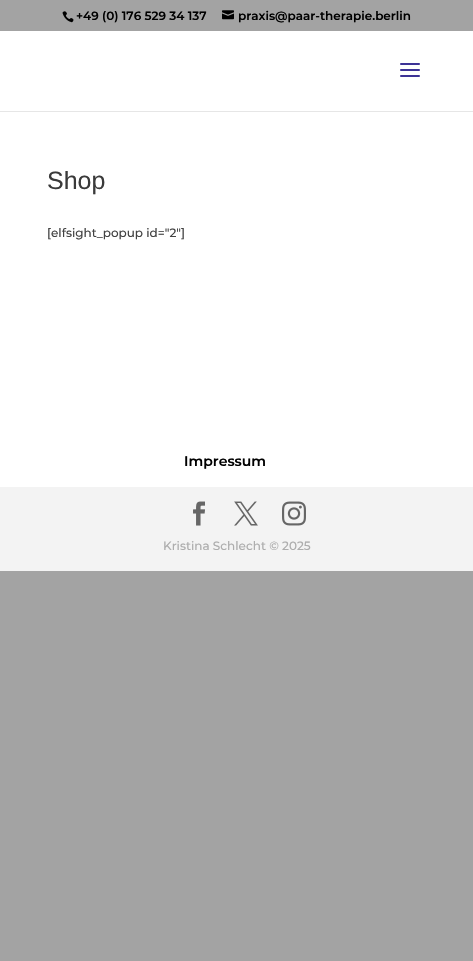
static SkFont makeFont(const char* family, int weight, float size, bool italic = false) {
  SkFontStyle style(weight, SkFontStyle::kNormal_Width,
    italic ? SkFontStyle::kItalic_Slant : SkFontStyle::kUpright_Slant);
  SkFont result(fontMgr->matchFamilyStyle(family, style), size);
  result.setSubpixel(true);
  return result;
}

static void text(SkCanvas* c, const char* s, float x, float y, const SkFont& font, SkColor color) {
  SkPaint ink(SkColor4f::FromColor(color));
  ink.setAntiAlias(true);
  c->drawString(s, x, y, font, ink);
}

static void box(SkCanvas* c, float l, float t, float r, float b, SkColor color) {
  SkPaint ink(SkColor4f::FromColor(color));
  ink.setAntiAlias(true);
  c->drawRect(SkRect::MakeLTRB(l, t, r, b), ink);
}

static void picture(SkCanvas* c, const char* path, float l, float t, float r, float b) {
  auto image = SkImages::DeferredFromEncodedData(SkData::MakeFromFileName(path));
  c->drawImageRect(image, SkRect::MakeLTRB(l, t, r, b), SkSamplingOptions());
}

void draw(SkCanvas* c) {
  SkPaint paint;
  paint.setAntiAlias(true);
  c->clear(0xffa3a3a3);
  picture(c, "img_01.png", 62, 11, 74, 23);
  SkFont face1 = makeFont("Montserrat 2", 100, 12);
  text(c, "+49 (0) 176 529 34 137", 76, 20, face1, 0xff000000);
  picture(c, "img_02.png", 222, 10, 234, 20);
  text(c, "praxis@paar-therapie.berlin", 238, 20, face1, 0xff000000);
  box(c, 0, 111, 473, 112, 0xffe6e6e6);
  box(c, 0, 31, 473, 111, 0xffffffff);
  picture(c, "img_03.png", 400, 63, 420, 77);
  box(c, 0, 112, 473, 487, 0xffffffff);
  SkFont face2 = makeFont("Liberation Sans", 400, 25);
  text(c, "Shop", 47, 189, face2, 0xff3a3a3a);
  SkFont face3 = makeFont("Montserrat", 100, 12);
  text(c, "[elfsight_popup id=\"2\"]", 47, 237, face3, 0xff424242);
  SkFont face4 = makeFont("Montserrat 2", 100, 14);
  text(c, "Impressum", 184, 466, face4, 0xff000000);
  box(c, 0, 487, 473, 571, 0xfff3f3f3);
  picture(c, "img_04.png", 193, 501, 205, 526);
  picture(c, "img_05.png", 234, 501, 258, 526);
  picture(c, "img_06.png", 282, 501, 306, 526);
  text(c, "Kristina Schlecht © 2025", 163, 550, face3, 0xffadadad);
}
